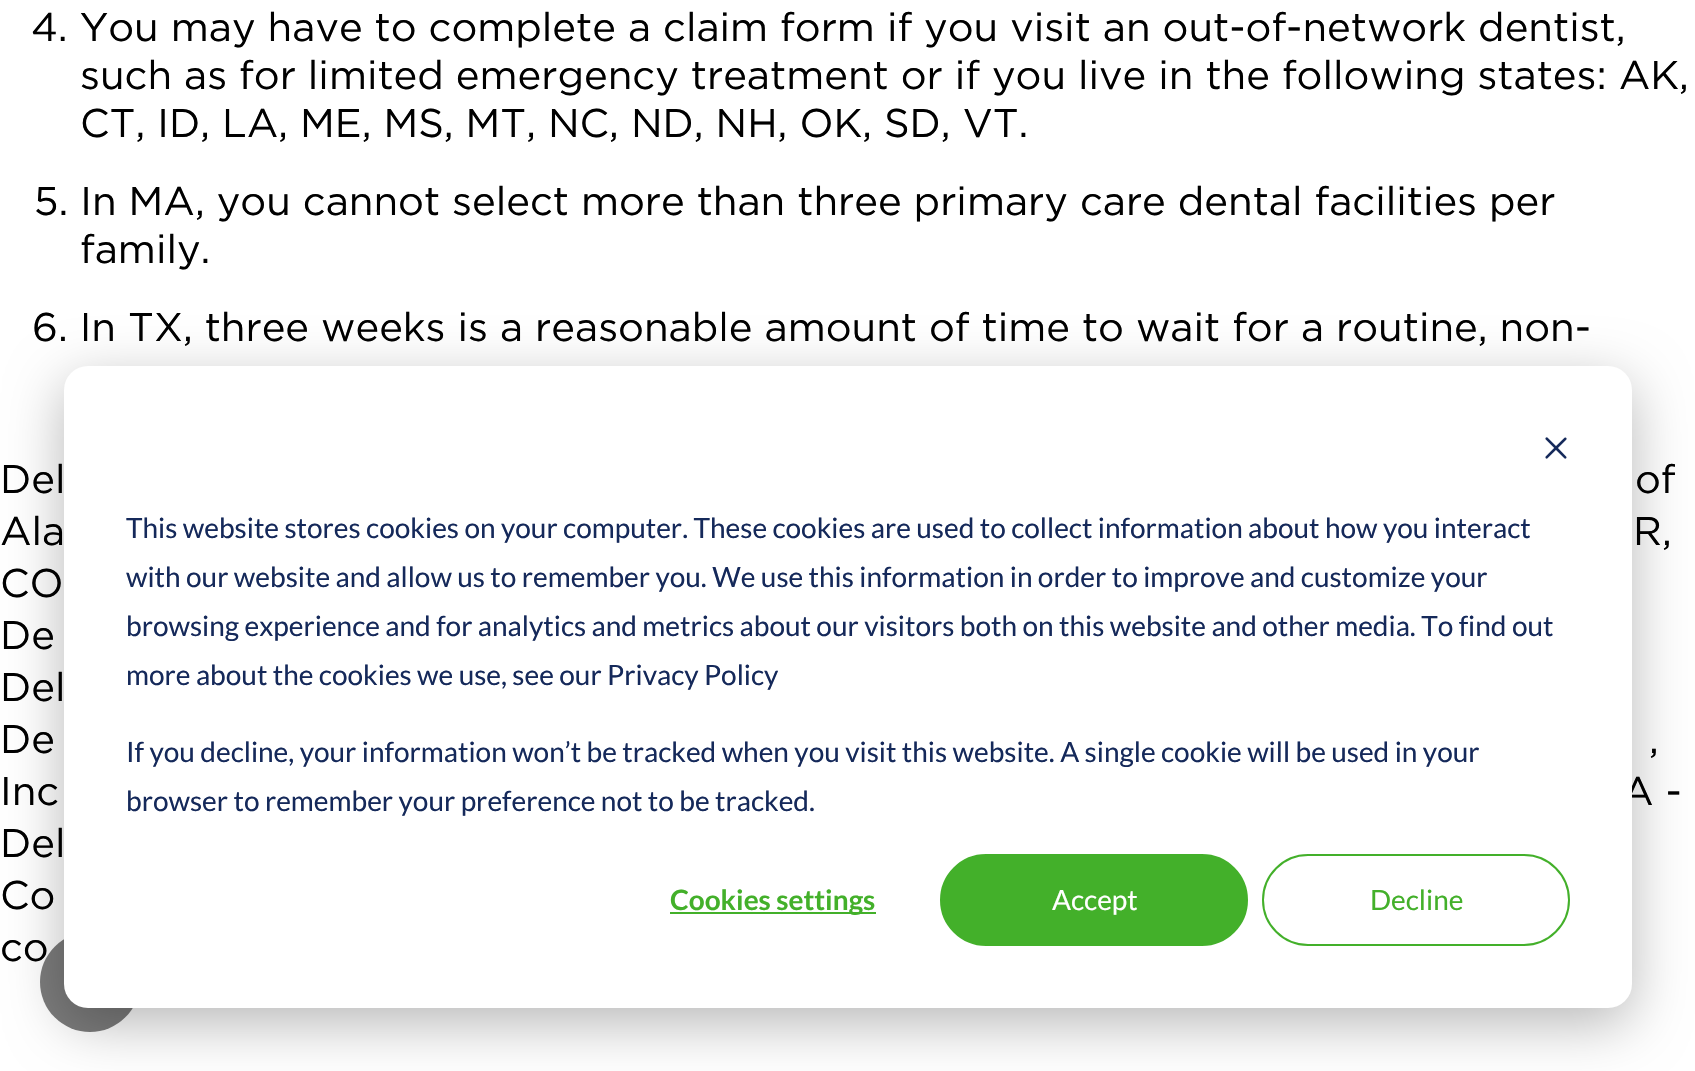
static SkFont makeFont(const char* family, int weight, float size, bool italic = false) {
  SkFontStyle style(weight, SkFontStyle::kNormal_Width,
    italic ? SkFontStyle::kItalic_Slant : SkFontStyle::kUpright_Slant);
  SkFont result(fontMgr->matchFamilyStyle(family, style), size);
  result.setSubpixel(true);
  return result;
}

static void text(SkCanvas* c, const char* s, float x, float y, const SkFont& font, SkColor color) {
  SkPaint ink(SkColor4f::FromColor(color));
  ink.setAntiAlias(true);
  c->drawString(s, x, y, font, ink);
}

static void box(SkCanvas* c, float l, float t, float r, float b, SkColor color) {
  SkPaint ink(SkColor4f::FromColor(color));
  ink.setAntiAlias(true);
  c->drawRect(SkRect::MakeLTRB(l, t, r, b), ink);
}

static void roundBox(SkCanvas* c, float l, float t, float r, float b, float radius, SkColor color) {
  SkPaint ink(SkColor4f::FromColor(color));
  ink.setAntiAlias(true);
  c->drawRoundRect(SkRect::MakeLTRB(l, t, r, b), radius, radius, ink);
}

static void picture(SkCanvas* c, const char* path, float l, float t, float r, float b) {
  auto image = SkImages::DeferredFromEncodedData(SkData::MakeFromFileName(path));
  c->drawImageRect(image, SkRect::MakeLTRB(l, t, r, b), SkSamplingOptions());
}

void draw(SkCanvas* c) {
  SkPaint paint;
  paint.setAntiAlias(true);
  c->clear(0xffffffff);
  SkFont face1 = makeFont("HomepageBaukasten", 400, 40);
  text(c, "4. You may have to complete a claim form if you visit an out-of-network dentist,", 31, 41, face1, 0xff000000);
  text(c, "such as for limited emergency treatment or if you live in the following states: AK,", 80, 89, face1, 0xff000000);
  text(c, "CT, ID, LA, ME, MS, MT, NC, ND, NH, OK, SD, VT.", 80, 137, face1, 0xff000000);
  text(c, "5. In MA, you cannot select more than three primary care dental facilities per", 34, 215, face1, 0xff000000);
  text(c, "family.", 80, 263, face1, 0xff000000);
  text(c, "6. In TX, three weeks is a reasonable amount of time to wait for a routine, non-", 32, 341, face1, 0xff000000);
  text(c, "Del", 0, 493, face1, 0xff000000);
  text(c, "of", 1635, 493, face1, 0xff000000);
  text(c, "Ala", 0, 545, face1, 0xff000000);
  text(c, "R,", 1633, 545, face1, 0xff000000);
  text(c, "CO", 0, 597, face1, 0xff000000);
  text(c, "De", 0, 649, face1, 0xff000000);
  text(c, "Del", 0, 701, face1, 0xff000000);
  text(c, "De", 0, 753, face1, 0xff000000);
  text(c, ",", 1649, 753, face1, 0xff000000);
  text(c, "Inc", 0, 805, face1, 0xff000000);
  text(c, "A -", 1622, 805, face1, 0xff000000);
  text(c, "Del", 0, 857, face1, 0xff000000);
  text(c, "Co", 0, 909, face1, 0xff000000);
  text(c, "co", 0, 961, face1, 0xff000000);
  paint.setColor(0xb3444444);
  c->drawCircle(90, 982, 50, paint);
  paint.setColor(0x47000000);
  paint.setMaskFilter(SkMaskFilter::MakeBlur(kNormal_SkBlurStyle, 28));
  c->drawRoundRect(SkRect::MakeLTRB(64, 382, 1632, 1024), 24, 24, paint);
  paint.setMaskFilter(nullptr);
  roundBox(c, 64, 366, 1632, 1008, 24, 0xffffffff);
  picture(c, "img_01.png", 1545, 437, 1567, 459);
  SkFont face2 = makeFont("Lato", 400, 28);
  text(c, "This website stores cookies on your computer. These cookies are used to collect information about how you interact", 126, 538, face2, 0xff15295a);
  text(c, "with our website and allow us to remember you. We use this information in order to improve and customize your", 126, 587, face2, 0xff15295a);
  text(c, "browsing experience and for analytics and metrics about our visitors both on this website and other media. To find out", 126, 636, face2, 0xff15295a);
  text(c, "more about the cookies we use, see our Privacy Policy", 126, 685, face2, 0xff15295a);
  text(c, "If you decline, your information won’t be tracked when you visit this website. A single cookie will be used in your", 126, 762, face2, 0xff15295a);
  text(c, "browser to remember your preference not to be tracked.", 126, 811, face2, 0xff15295a);
  box(c, 670, 912, 876, 914, 0xff43b02a);
  SkFont face3 = makeFont("Lato", 700, 28);
  text(c, "Cookies settings", 670, 910, face3, 0xff43b02a);
  paint.setColor(0xff43b02a);
  c->drawRoundRect(SkRect::MakeLTRB(941, 855, 1247, 945), 45, 45, paint);
  paint.setStyle(SkPaint::kStroke_Style);
  paint.setStrokeWidth(2);
  c->drawRoundRect(SkRect::MakeLTRB(941, 855, 1247, 945), 45, 45, paint);
  text(c, "Accept", 1052, 910, face2, 0xffffffff);
  c->drawRoundRect(SkRect::MakeLTRB(1263, 855, 1569, 945), 45, 45, paint);
  text(c, "Decline", 1370, 910, face2, 0xff43b02a);
}
